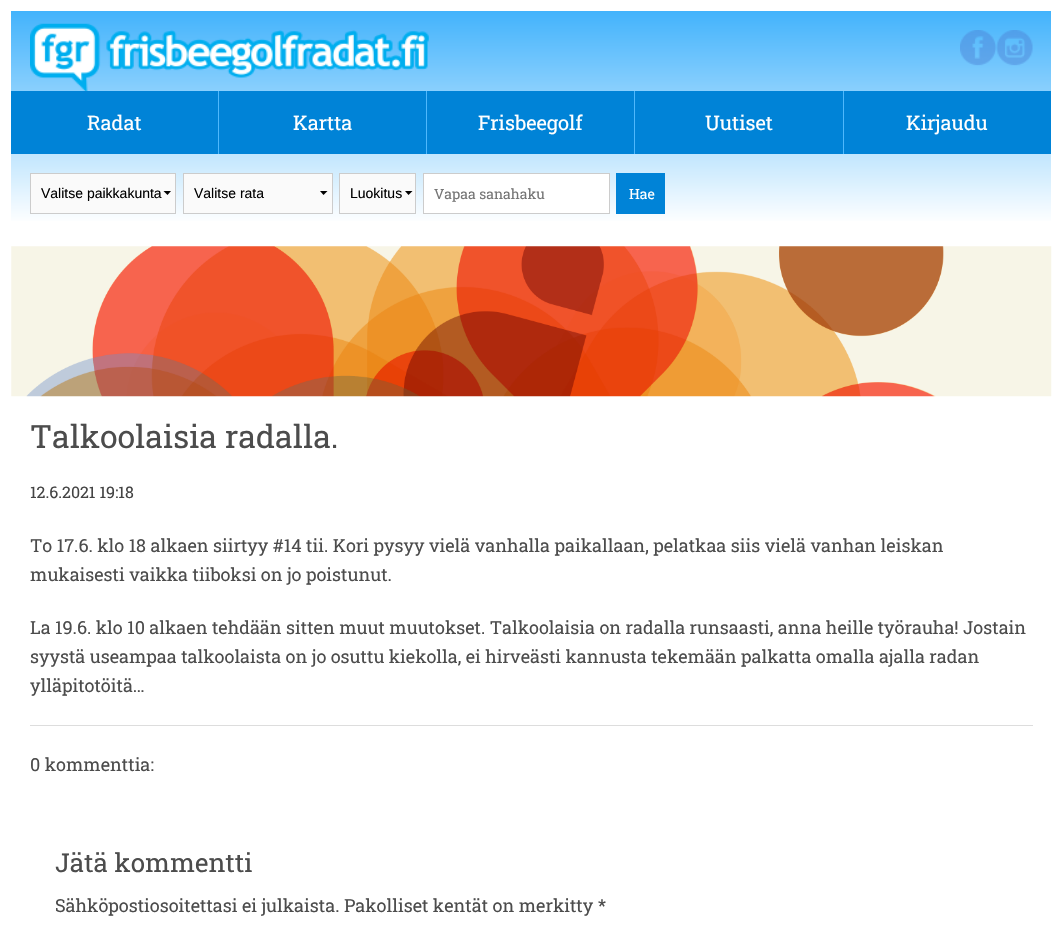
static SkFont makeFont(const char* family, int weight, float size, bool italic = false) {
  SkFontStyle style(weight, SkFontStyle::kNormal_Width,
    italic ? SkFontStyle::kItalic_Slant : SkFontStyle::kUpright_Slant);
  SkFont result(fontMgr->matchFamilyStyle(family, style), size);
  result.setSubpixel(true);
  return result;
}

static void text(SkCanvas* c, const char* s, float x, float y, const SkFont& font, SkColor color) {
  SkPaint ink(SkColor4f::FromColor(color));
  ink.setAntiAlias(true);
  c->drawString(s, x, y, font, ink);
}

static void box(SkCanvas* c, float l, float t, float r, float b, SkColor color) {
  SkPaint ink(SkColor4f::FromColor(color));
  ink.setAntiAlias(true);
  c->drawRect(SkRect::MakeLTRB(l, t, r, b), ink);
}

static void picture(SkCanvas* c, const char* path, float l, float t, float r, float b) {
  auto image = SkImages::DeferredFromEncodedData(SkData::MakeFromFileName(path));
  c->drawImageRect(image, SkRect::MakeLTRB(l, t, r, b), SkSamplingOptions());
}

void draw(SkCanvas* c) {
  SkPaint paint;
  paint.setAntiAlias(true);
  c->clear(0xffffffff);
  {
    const SkColor colors[] = {0xff43b3fc, 0xffffffff};
    const float stops[] = {0, 1};
    const SkPoint ends[] = {{531, 11}, {531, 224}};
    paint.setShader(SkGradientShader::MakeLinear(ends, colors, stops, 2, SkTileMode::kClamp));
    paint.setAlpha(255);
  }
  c->drawRect(SkRect::MakeLTRB(11, 11, 1051, 221), paint);
  picture(c, "img_01.png", 30, 23, 429, 91);
  box(c, 11, 91, 218, 154, 0xff0083d7);
  box(c, 218, 91, 219, 154, 0xff4fb8fc);
  SkFont face1 = makeFont("Roboto Slab", 400, 20);
  text(c, "Radat", 87, 130, face1, 0xffffffff);
  box(c, 219, 91, 634, 154, 0xff0083d7);
  box(c, 426, 91, 427, 154, 0xff4fb8fc);
  text(c, "Kartta", 293, 130, face1, 0xffffffff);
  box(c, 634, 91, 635, 154, 0xff4fb8fc);
  text(c, "Frisbeegolf", 478, 130, face1, 0xffffffff);
  box(c, 635, 91, 843, 154, 0xff0083d7);
  box(c, 843, 91, 844, 154, 0xff4fb8fc);
  text(c, "Uutiset", 705, 130, face1, 0xffffffff);
  box(c, 844, 91, 1051, 154, 0xff0083d7);
  text(c, "Kirjaudu", 906, 130, face1, 0xffffffff);
  picture(c, "img_02.png", 960, 30, 996, 66);
  picture(c, "img_03.png", 996, 30, 1033, 66);
  box(c, 31, 174, 175, 213, 0xfffafafa);
  paint.setShader(nullptr);
  paint.setColor(0xff000000);
  c->drawPath(SkPathBuilder().moveTo(171, 191).lineTo(167.5f, 195).lineTo(163.5f, 191).close().detach(), paint);
  paint.setStyle(SkPaint::kStroke_Style);
  paint.setStrokeWidth(1);
  paint.setColor(0xffcccccc);
  c->drawRect(SkRect::MakeLTRB(30.5f, 173.5f, 175.5f, 213.5f), paint);
  SkFont face2 = makeFont("Liberation Sans", 400, 14);
  text(c, "Valitse paikkakunta", 41, 198, face2, 0xff000000);
  box(c, 184, 174, 332, 213, 0xfffafafa);
  paint.setStyle(SkPaint::kFill_Style);
  paint.setColor(0xff000000);
  c->drawPath(SkPathBuilder().moveTo(327.5f, 191).lineTo(323.5f, 195).lineTo(320, 191).close().detach(), paint);
  paint.setStyle(SkPaint::kStroke_Style);
  paint.setColor(0xffcccccc);
  c->drawRect(SkRect::MakeLTRB(183.5f, 173.5f, 332.5f, 213.5f), paint);
  text(c, "Valitse rata", 194, 198, face2, 0xff000000);
  box(c, 340, 174, 415, 213, 0xfffafafa);
  paint.setStyle(SkPaint::kFill_Style);
  paint.setColor(0xff000000);
  c->drawPath(SkPathBuilder().moveTo(412.5f, 191).lineTo(408.5f, 195).lineTo(405, 191).close().detach(), paint);
  paint.setStyle(SkPaint::kStroke_Style);
  paint.setColor(0xffcccccc);
  c->drawRect(SkRect::MakeLTRB(339.5f, 173.5f, 415.5f, 213.5f), paint);
  text(c, "Luokitus", 350, 198, face2, 0xff000000);
  paint.setStyle(SkPaint::kFill_Style);
  paint.setColor(0xffffffff);
  c->drawRect(SkRect::MakeLTRB(423.5f, 173.5f, 609.5f, 213.5f), paint);
  paint.setStyle(SkPaint::kStroke_Style);
  paint.setColor(0xffcccccc);
  c->drawRect(SkRect::MakeLTRB(423.5f, 173.5f, 609.5f, 213.5f), paint);
  SkFont face3 = makeFont("Roboto Slab", 400, 14);
  text(c, "Vapaa sanahaku", 434, 199, face3, 0xff757575);
  box(c, 616, 173, 665, 214, 0xff0083d7);
  text(c, "Hae", 629, 199, face3, 0xffffffff);
  picture(c, "img_04.png", 11, 246, 1052, 397);
  SkFont face4 = makeFont("Roboto Slab", 400, 32);
  text(c, "Talkoolaisia radalla.", 30, 448, face4, 0xff4c4c4c);
  SkFont face5 = makeFont("Roboto Slab", 400, 16);
  text(c, "12.6.2021 19:18", 30, 498, face5, 0xff444444);
  SkFont face6 = makeFont("Roboto Slab", 400, 18);
  text(c, "To 17.6. klo 18 alkaen siirtyy #14 tii. Kori pysyy vielä vanhalla paikallaan, pelatkaa siis vielä vanhan leiskan", 30, 552, face6, 0xff4c4c4c);
  text(c, "mukaisesti vaikka tiiboksi on jo poistunut.", 30, 581, face6, 0xff4c4c4c);
  text(c, "La 19.6. klo 10 alkaen tehdään sitten muut muutokset. Talkoolaisia on radalla runsaasti, anna heille työrauha! Jostain", 30, 634, face6, 0xff4c4c4c);
  text(c, "syystä useampaa talkoolaista on jo osuttu kiekolla, ei hirveästi kannusta tekemään palkatta omalla ajalla radan", 30, 663, face6, 0xff4c4c4c);
  text(c, "ylläpitotöitä…", 30, 692, face6, 0xff4c4c4c);
  box(c, 30, 725, 1033, 726, 0xffdddddd);
  text(c, "0 kommenttia:", 30, 771, face6, 0xff4c4c4c);
  SkFont face7 = makeFont("Roboto Slab", 400, 26);
  text(c, "Jätä kommentti", 55, 872, face7, 0xff4c4c4c);
  text(c, "Sähköpostiosoitettasi ei julkaista. Pakolliset kentät on merkitty *", 55, 912, face6, 0xff4c4c4c);
}
